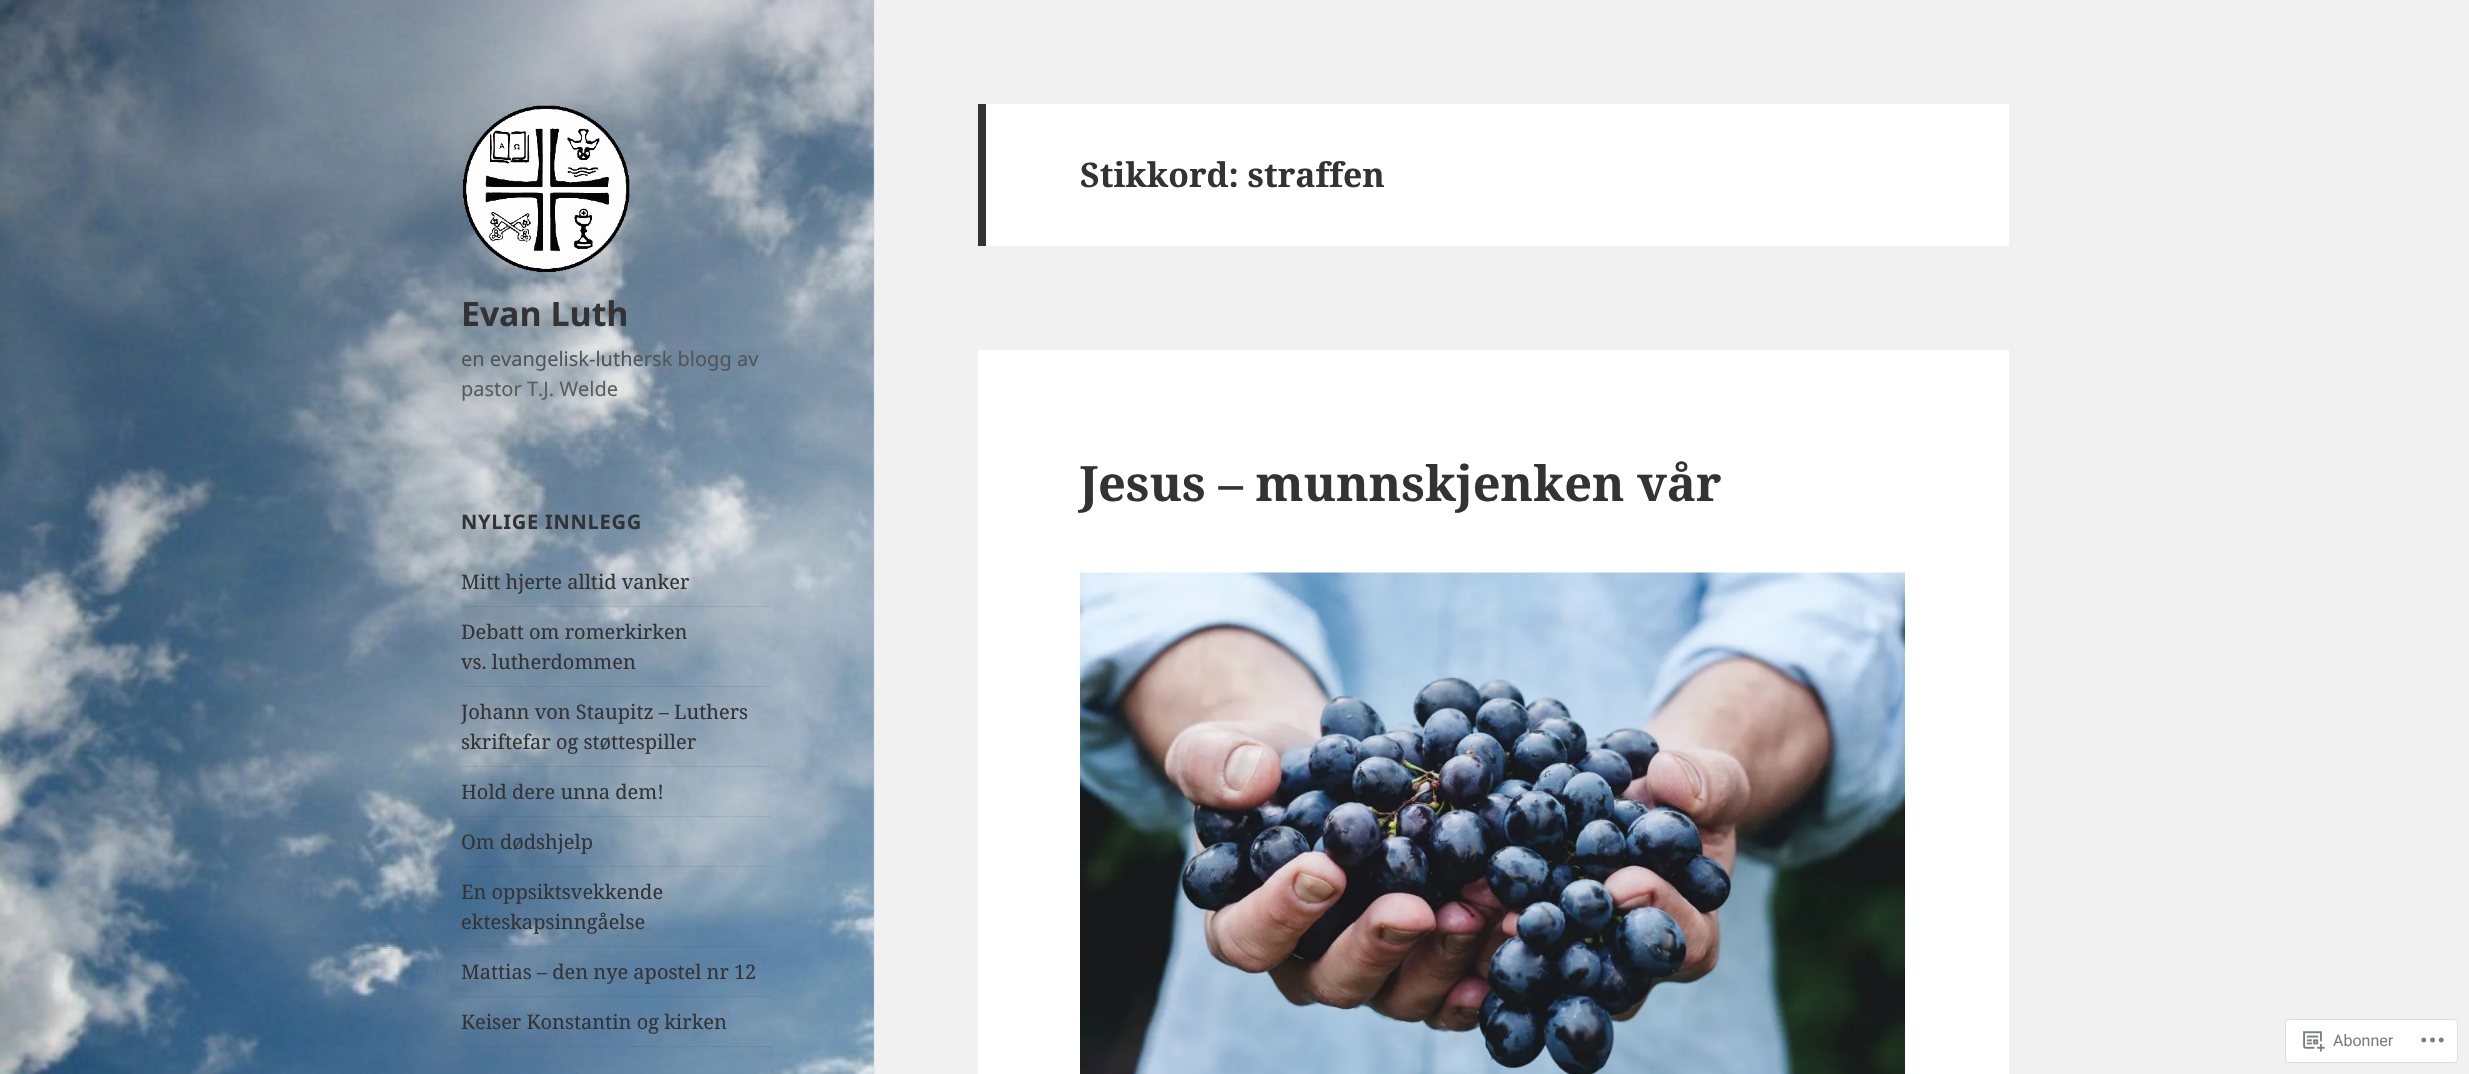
static SkFont makeFont(const char* family, int weight, float size, bool italic = false) {
  SkFontStyle style(weight, SkFontStyle::kNormal_Width,
    italic ? SkFontStyle::kItalic_Slant : SkFontStyle::kUpright_Slant);
  SkFont result(fontMgr->matchFamilyStyle(family, style), size);
  result.setSubpixel(true);
  return result;
}

static void text(SkCanvas* c, const char* s, float x, float y, const SkFont& font, SkColor color) {
  SkPaint ink(SkColor4f::FromColor(color));
  ink.setAntiAlias(true);
  c->drawString(s, x, y, font, ink);
}

static void spacedText(SkCanvas* c, const char* s, float x, float y, const SkFont& font, const SkPaint& ink, float letter, float word) {
  std::vector<SkGlyphID> glyphs(font.countText(s, strlen(s), SkTextEncoding::kUTF8));
  std::vector<float> xs(glyphs.size());
  font.textToGlyphs(s, strlen(s), SkTextEncoding::kUTF8, glyphs);
  font.getXPos(glyphs, xs, x);
  float extra = 0;
  for (size_t i = 0; i < glyphs.size(); i++) {
    xs[i] += extra;
    extra += letter + word * (glyphs[i] == font.unicharToGlyph(' '));
  }
  c->drawTextBlob(SkTextBlob::MakeFromPosHGlyphs(glyphs, xs, y, font), 0, 0, ink);
}

static void box(SkCanvas* c, float l, float t, float r, float b, SkColor color) {
  SkPaint ink(SkColor4f::FromColor(color));
  ink.setAntiAlias(true);
  c->drawRect(SkRect::MakeLTRB(l, t, r, b), ink);
}

static void picture(SkCanvas* c, const char* path, float l, float t, float r, float b) {
  auto image = SkImages::DeferredFromEncodedData(SkData::MakeFromFileName(path));
  c->drawImageRect(image, SkRect::MakeLTRB(l, t, r, b), SkSamplingOptions());
}

void draw(SkCanvas* c) {
  SkPaint paint;
  paint.setAntiAlias(true);
  c->clear(0xfff1f1f1);
  paint.setColor(0x26000000);
  paint.setMaskFilter(SkMaskFilter::MakeBlur(kNormal_SkBlurStyle, 0.5f));
  c->drawRect(SkRect::MakeLTRB(0, 0, 874, 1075), paint);
  paint.setMaskFilter(nullptr);
  picture(c, "img_01.png", 0, 0, 874, 1074);
  picture(c, "img_02.png", 463, 105, 630, 272);
  SkFont face1 = makeFont("Noto Sans", 700, 33.75f);
  text(c, "Evan Luth", 461, 326, face1, 0xff333333);
  SkFont face2 = makeFont("Noto Sans", 400, 20);
  text(c, "en evangelisk-luthersk blogg av", 461, 366, face2, 0xff505559);
  text(c, "pastor T.J. Welde", 461, 396, face2, 0xff5a5c5e);
  SkFont face3 = makeFont("Noto Sans", 700, 20);
  paint.setColor(0xff333333);
  spacedText(c, "NYLIGE INNLEGG", 461, 529, face3, paint, 0.75f, 0);
  SkFont face4 = makeFont("Noto Serif", 400, 20);
  text(c, "Mitt hjerte alltid vanker", 461, 589, face4, 0xff333333);
  box(c, 461, 606, 771, 607, 0x1a333333);
  text(c, "Debatt om romerkirken", 461, 639, face4, 0xff333333);
  text(c, "vs. lutherdommen", 461, 669, face4, 0xff333333);
  box(c, 461, 686, 771, 687, 0x1a333333);
  text(c, "Johann von Staupitz – Luthers", 461, 719, face4, 0xff333333);
  text(c, "skriftefar og støttespiller", 461, 749, face4, 0xff333333);
  box(c, 461, 766, 771, 767, 0x1a333333);
  text(c, "Hold dere unna dem!", 461, 799, face4, 0xff333333);
  box(c, 461, 816, 771, 817, 0x1a333333);
  text(c, "Om dødshjelp", 461, 849, face4, 0xff333333);
  box(c, 461, 866, 771, 867, 0x1a333333);
  text(c, "En oppsiktsvekkende", 461, 899, face4, 0xff333333);
  text(c, "ekteskapsinngåelse", 461, 929, face4, 0xff333333);
  box(c, 461, 946, 771, 947, 0x1a333333);
  text(c, "Mattias – den nye apostel nr 12", 461, 979, face4, 0xff333333);
  box(c, 461, 996, 771, 997, 0x1a333333);
  text(c, "Keiser Konstantin og kirken", 461, 1029, face4, 0xff333333);
  box(c, 461, 1046, 771, 1047, 0x1a333333);
  box(c, 986, 104, 2009, 246, 0xffffffff);
  box(c, 978, 104, 986, 246, 0xff333333);
  SkFont face5 = makeFont("Noto Serif", 700, 33.75f);
  text(c, "Stikkord: straffen", 1080, 187, face5, 0xff333333);
  box(c, 978, 350, 2009, 1074, 0xffffffff);
  SkFont face6 = makeFont("Noto Serif", 700, 48.75f);
  text(c, "Jesus – munnskjenken vår", 1080, 501, face6, 0xff333333);
  picture(c, "img_03.png", 1080, 572, 1905, 1074);
  paint.setColor(0xffffffff);
  c->drawRoundRect(SkRect::MakeLTRB(2285.5f, 1019.5f, 2457.5f, 1062.5f), 3.5f, 3.5f, paint);
  paint.setStyle(SkPaint::kStroke_Style);
  paint.setStrokeWidth(1);
  paint.setColor(0xffdcdcde);
  c->drawRoundRect(SkRect::MakeLTRB(2285.5f, 1019.5f, 2457.5f, 1062.5f), 3.5f, 3.5f, paint);
  picture(c, "img_04.png", 2303, 1031, 2325, 1052);
  SkFont face7 = makeFont("Roboto", 400, 16);
  text(c, "Abonner", 2333, 1046, face7, 0xff7a7e84);
  picture(c, "img_05.png", 2421, 1037, 2444, 1043);
}
